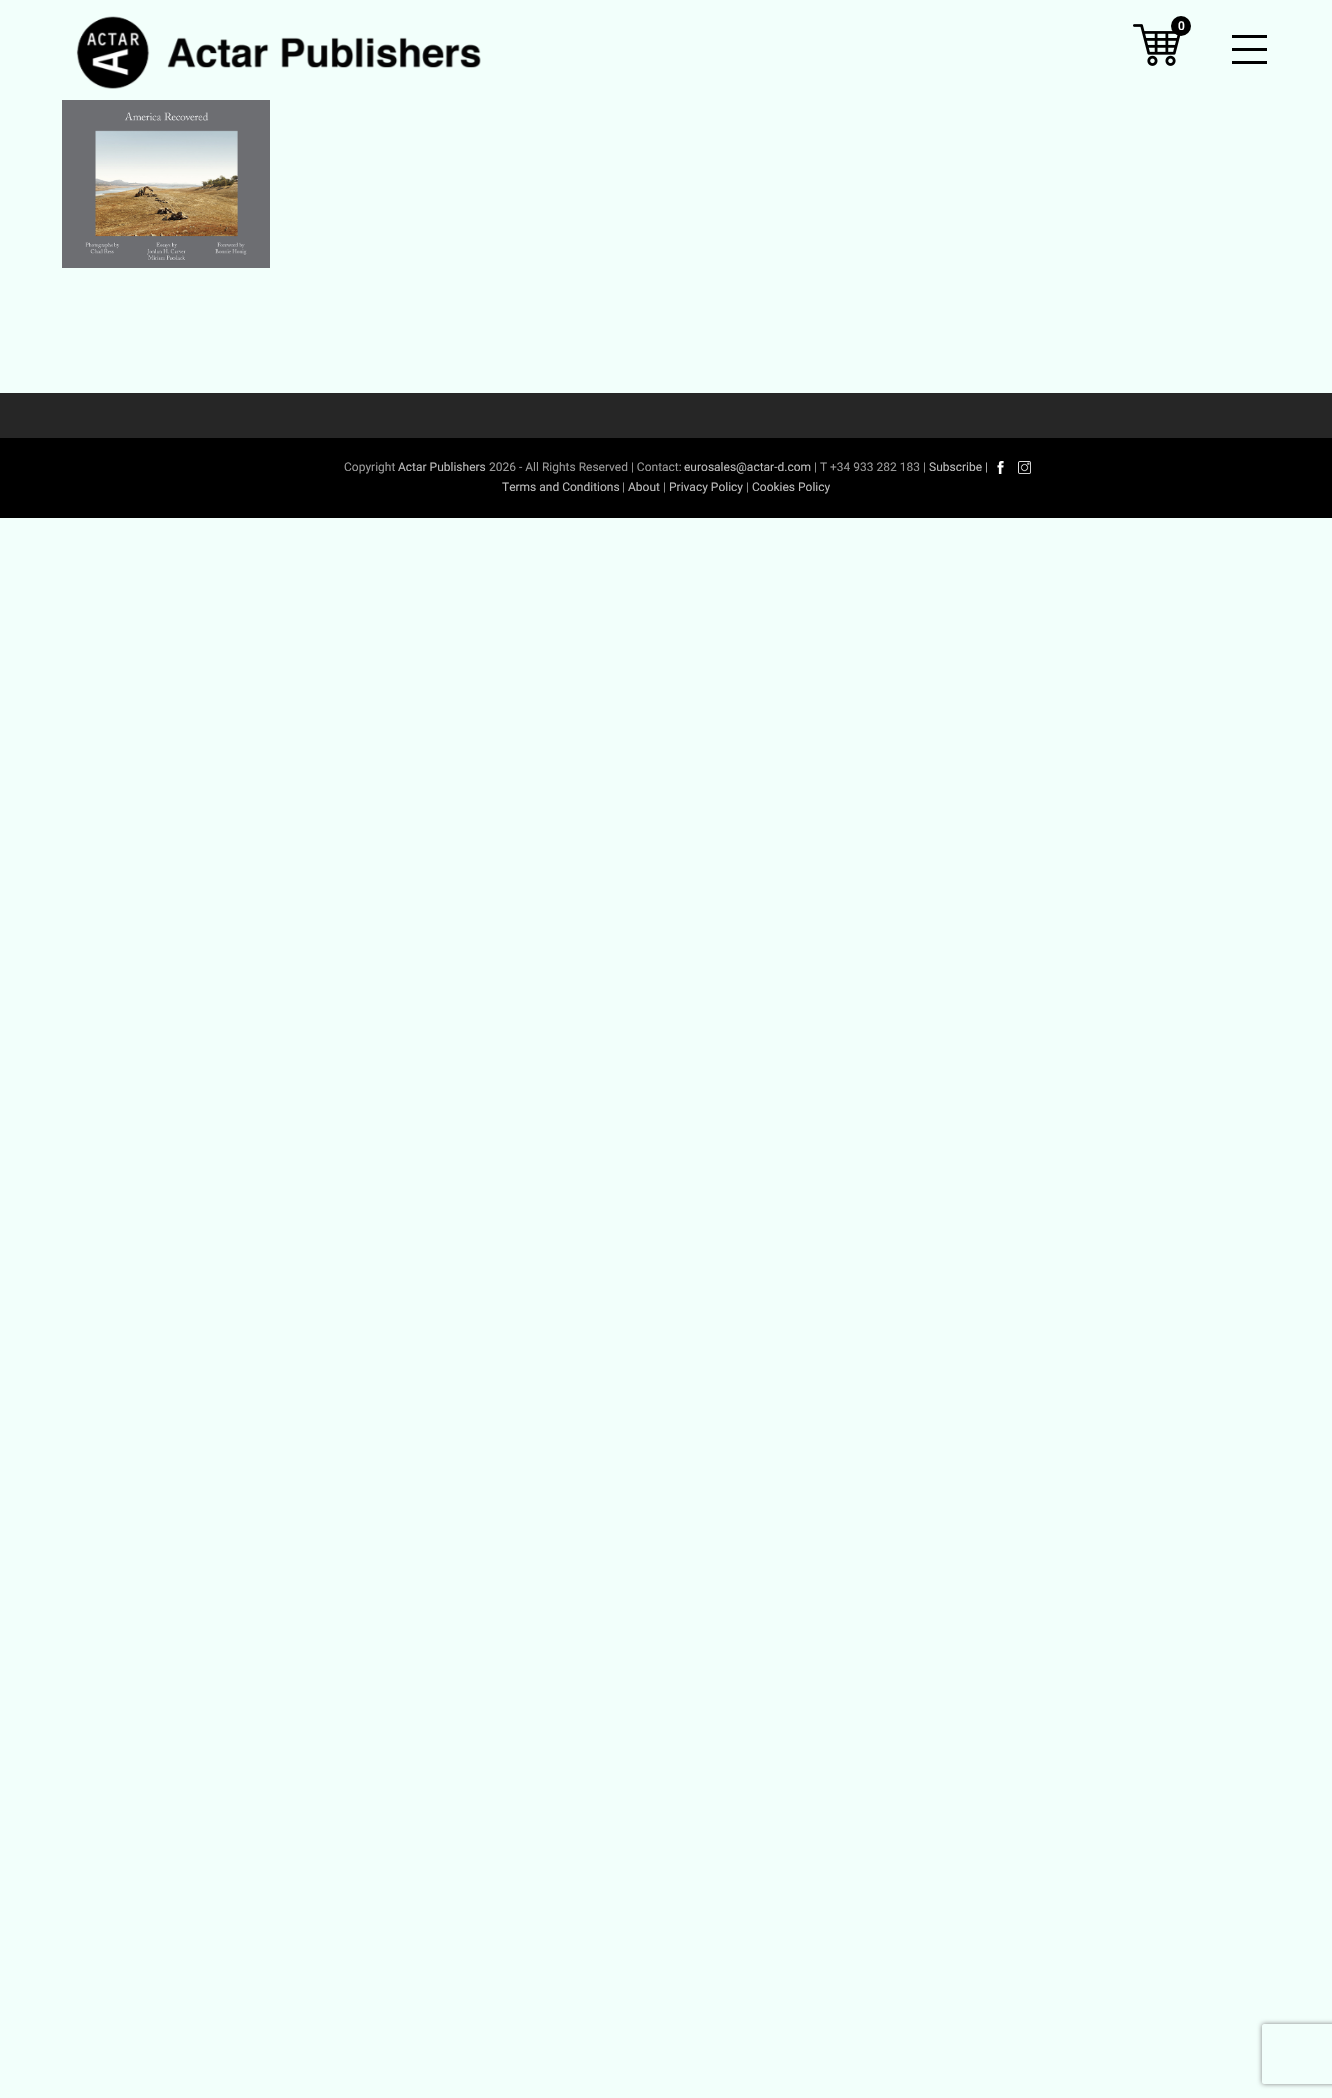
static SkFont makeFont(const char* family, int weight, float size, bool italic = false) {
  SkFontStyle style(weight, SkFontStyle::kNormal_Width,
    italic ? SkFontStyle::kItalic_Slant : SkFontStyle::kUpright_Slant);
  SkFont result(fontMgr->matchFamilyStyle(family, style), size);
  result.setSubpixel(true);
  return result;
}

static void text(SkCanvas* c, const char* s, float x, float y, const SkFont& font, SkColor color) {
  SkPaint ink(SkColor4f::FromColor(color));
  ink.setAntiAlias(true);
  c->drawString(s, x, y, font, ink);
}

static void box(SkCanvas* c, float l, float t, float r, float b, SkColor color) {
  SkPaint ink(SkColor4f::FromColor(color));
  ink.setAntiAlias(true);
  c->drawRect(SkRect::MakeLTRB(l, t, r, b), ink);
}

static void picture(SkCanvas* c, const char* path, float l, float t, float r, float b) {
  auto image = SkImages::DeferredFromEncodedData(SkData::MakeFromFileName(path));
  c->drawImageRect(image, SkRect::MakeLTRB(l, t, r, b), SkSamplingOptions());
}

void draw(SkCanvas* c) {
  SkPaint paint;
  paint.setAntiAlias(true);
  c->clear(0xfff2fffb);
  picture(c, "img_01.png", 1133, 24, 1181, 66);
  paint.setColor(0xff000000);
  c->drawCircle(1181, 26, 10, paint);
  SkFont face1 = makeFont("Roboto", 500, 12);
  text(c, "0", 1178, 30, face1, 0xffffffff);
  picture(c, "img_02.png", 76, 16, 481, 89);
  box(c, 1232, 48, 1267, 51, 0xff000000);
  box(c, 1232, 35, 1267, 38, 0xff000000);
  box(c, 1232, 61, 1267, 64, 0xff000000);
  picture(c, "img_03.png", 62, 100, 270, 268);
  box(c, 0, 393, 1332, 438, 0xff262626);
  box(c, 0, 438, 1332, 518, 0xff000000);
  SkFont face2 = makeFont("Roboto", 400, 12);
  text(c, "Copyright", 344, 471, face2, 0xff999999);
  text(c, "Actar Publishers", 398, 471, face2, 0xffbbbbbb);
  text(c, "2026 - All Rights Reserved | Contact:", 489, 471, face2, 0xff999999);
  text(c, "eurosales@actar-d.com", 684, 471, face2, 0xffbbbbbb);
  text(c, "| T +34 933 282 183 |", 814, 471, face2, 0xff999999);
  text(c, "Subscribe |", 929, 471, face2, 0xffbbbbbb);
  picture(c, "img_04.png", 997, 461, 1004, 474);
  picture(c, "img_05.png", 1018, 461, 1031, 474);
  text(c, "Terms and Conditions", 502, 491, face2, 0xffbbbbbb);
  text(c, "|", 622, 491, face2, 0xff999999);
  text(c, "About", 628, 491, face2, 0xffbbbbbb);
  text(c, "|", 663, 491, face2, 0xff999999);
  text(c, "Privacy Policy", 669, 491, face2, 0xffbbbbbb);
  text(c, "|", 746, 491, face2, 0xff999999);
  text(c, "Cookies Policy", 752, 491, face2, 0xffbbbbbb);
  c->save();
  c->clipPath(SkPathBuilder(SkPathFillType::kEvenOdd).moveTo(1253, 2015).lineTo(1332, 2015).lineTo(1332, 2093).lineTo(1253, 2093).close().moveTo(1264, 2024).lineTo(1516, 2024).cubicTo(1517, 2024, 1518, 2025, 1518, 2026).lineTo(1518, 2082).cubicTo(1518, 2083, 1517, 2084, 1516, 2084).lineTo(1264, 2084).cubicTo(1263, 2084, 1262, 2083, 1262, 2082).lineTo(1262, 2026).cubicTo(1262, 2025, 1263, 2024, 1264, 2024).close().detach(), true);
  paint.setColor(0xff808080);
  paint.setMaskFilter(SkMaskFilter::MakeBlur(kNormal_SkBlurStyle, 2.5f));
  c->drawRoundRect(SkRect::MakeLTRB(1262, 2024, 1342, 2084), 2, 2, paint);
  paint.setMaskFilter(nullptr);
  c->restore();
}
